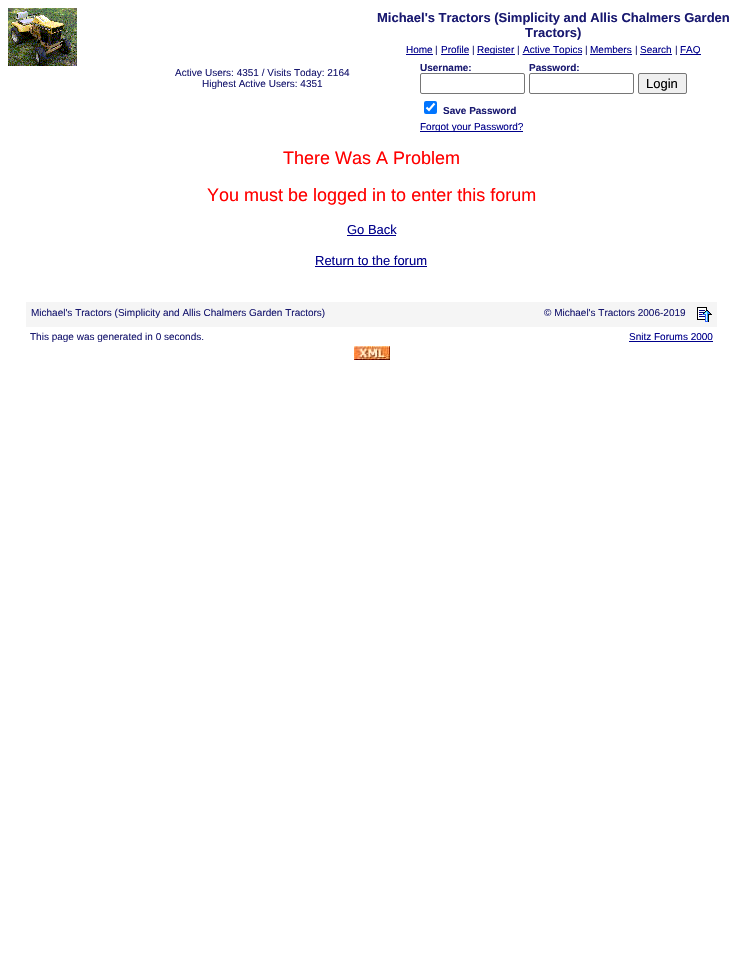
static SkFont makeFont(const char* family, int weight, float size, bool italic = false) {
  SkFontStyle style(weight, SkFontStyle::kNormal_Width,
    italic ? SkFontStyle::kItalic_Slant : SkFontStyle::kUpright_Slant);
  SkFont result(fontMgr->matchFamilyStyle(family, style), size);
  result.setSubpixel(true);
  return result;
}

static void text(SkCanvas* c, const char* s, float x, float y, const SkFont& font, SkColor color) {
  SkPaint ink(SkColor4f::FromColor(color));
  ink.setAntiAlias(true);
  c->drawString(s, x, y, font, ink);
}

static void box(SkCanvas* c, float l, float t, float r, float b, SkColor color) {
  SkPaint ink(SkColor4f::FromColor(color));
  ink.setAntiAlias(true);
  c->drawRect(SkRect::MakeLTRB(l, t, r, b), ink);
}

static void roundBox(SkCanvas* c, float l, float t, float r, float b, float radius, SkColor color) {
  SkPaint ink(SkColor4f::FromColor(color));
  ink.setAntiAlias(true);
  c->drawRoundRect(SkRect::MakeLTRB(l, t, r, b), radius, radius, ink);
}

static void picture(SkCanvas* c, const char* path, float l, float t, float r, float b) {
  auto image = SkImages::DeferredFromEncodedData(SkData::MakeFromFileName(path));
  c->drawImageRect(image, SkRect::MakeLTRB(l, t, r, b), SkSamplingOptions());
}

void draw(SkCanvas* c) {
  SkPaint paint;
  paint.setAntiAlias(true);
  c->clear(0xffffffff);
  picture(c, "img_01.png", 8, 8, 77, 66);
  SkFont face1 = makeFont("Liberation Sans", 400, 10);
  text(c, "Active Users: 4351 / Visits Today: 2164", 175, 76, face1, 0xff191970);
  text(c, "Highest Active Users: 4351", 202, 87, face1, 0xff191970);
  SkFont face2 = makeFont("Liberation Sans", 700, 13);
  text(c, "Michael's Tractors (Simplicity and Allis Chalmers Garden", 377, 22, face2, 0xff191970);
  text(c, "Tractors)", 525, 37, face2, 0xff191970);
  text(c, "Home", 406, 53, face1, 0xff00008b);
  box(c, 406, 54, 433, 55, 0xff00008b);
  text(c, "|", 435, 53, face1, 0xff191970);
  text(c, "Profile", 441, 53, face1, 0xff00008b);
  box(c, 441, 54, 469, 55, 0xff00008b);
  text(c, "|", 472, 53, face1, 0xff191970);
  box(c, 477, 54, 515, 55, 0xff00008b);
  text(c, "Register", 477, 53, face1, 0xff00008b);
  text(c, "|", 517, 53, face1, 0xff191970);
  paint.setStyle(SkPaint::kStroke_Style);
  paint.setStrokeWidth(1);
  paint.setColor(0xff00008b);
  paint.setPathEffect(SkDashPathEffect::Make({{1, 1}}, 0));
  c->drawPath(SkPathBuilder().moveTo(522.5f, 54.5f).lineTo(582, 54.5f).detach(), paint);
  paint.setPathEffect(nullptr);
  box(c, 523, 54, 582, 55, 0xff00008b);
  text(c, "Active Topics", 523, 53, face1, 0xff00008b);
  text(c, "|", 585, 53, face1, 0xff191970);
  text(c, "Members", 590, 53, face1, 0xff00008b);
  box(c, 590, 54, 632, 55, 0xff00008b);
  text(c, "|", 635, 53, face1, 0xff191970);
  text(c, "Search", 640, 53, face1, 0xff00008b);
  box(c, 640, 54, 672, 55, 0xff00008b);
  text(c, "|", 675, 53, face1, 0xff191970);
  box(c, 680, 54, 701, 55, 0xff00008b);
  text(c, "FAQ", 680, 53, face1, 0xff00008b);
  SkFont face3 = makeFont("Liberation Sans", 700, 10);
  text(c, "Username:", 420, 71, face3, 0xff191970);
  paint.setColor(0xff767676);
  c->drawRoundRect(SkRect::MakeLTRB(420.5f, 73.5f, 524.5f, 93.5f), 1.5f, 1.5f, paint);
  text(c, "Password:", 529, 71, face3, 0xff191970);
  c->drawRoundRect(SkRect::MakeLTRB(529.5f, 73.5f, 633.5f, 93.5f), 1.5f, 1.5f, paint);
  paint.setStyle(SkPaint::kFill_Style);
  paint.setColor(0xffefefef);
  c->drawRoundRect(SkRect::MakeLTRB(638.5f, 73.5f, 686.5f, 93.5f), 1.5f, 1.5f, paint);
  paint.setStyle(SkPaint::kStroke_Style);
  paint.setColor(0xff767676);
  c->drawRoundRect(SkRect::MakeLTRB(638.5f, 73.5f, 686.5f, 93.5f), 1.5f, 1.5f, paint);
  SkFont face4 = makeFont("Liberation Sans", 400, 13);
  text(c, "Login", 646, 88, face4, 0xff000000);
  roundBox(c, 424, 101, 437, 114, 2, 0xff0075ff);
  paint.setStrokeWidth(2.1f);
  paint.setColor(0xffffffff);
  c->drawPath(SkPathBuilder().moveTo(426.5f, 107.5f).lineTo(429, 110).lineTo(434.5f, 103.5f).detach(), paint);
  text(c, "Save Password", 443, 114, face3, 0xff191970);
  box(c, 420, 131, 523, 132, 0xff00008b);
  text(c, "Forgot your Password?", 420, 130, face1, 0xff00008b);
  SkFont face5 = makeFont("Liberation Sans", 400, 18);
  text(c, "There Was A Problem", 283, 164, face5, 0xffff0000);
  text(c, "You must be logged in to enter this forum", 207, 201, face5, 0xffff0000);
  text(c, "Go Back", 347, 234, face4, 0xff00008b);
  box(c, 347, 235, 396, 236, 0xff00008b);
  text(c, "Return to the forum", 315, 265, face4, 0xff00008b);
  box(c, 315, 266, 427, 267, 0xff00008b);
  box(c, 26, 302, 717, 327, 0xfff5f5f5);
  text(c, "Michael's Tractors (Simplicity and Allis Chalmers Garden Tractors)", 31, 316, face1, 0xff191970);
  text(c, "© Michael's Tractors 2006-2019", 544, 316, face1, 0xff191970);
  picture(c, "img_02.png", 697, 307, 712, 322);
  text(c, "This page was generated in 0 seconds.", 30, 340, face1, 0xff191970);
  text(c, "Snitz Forums 2000", 629, 340, face1, 0xff00008b);
  box(c, 629, 341, 713, 342, 0xff00008b);
  picture(c, "img_03.png", 354, 346, 390, 360);
}
